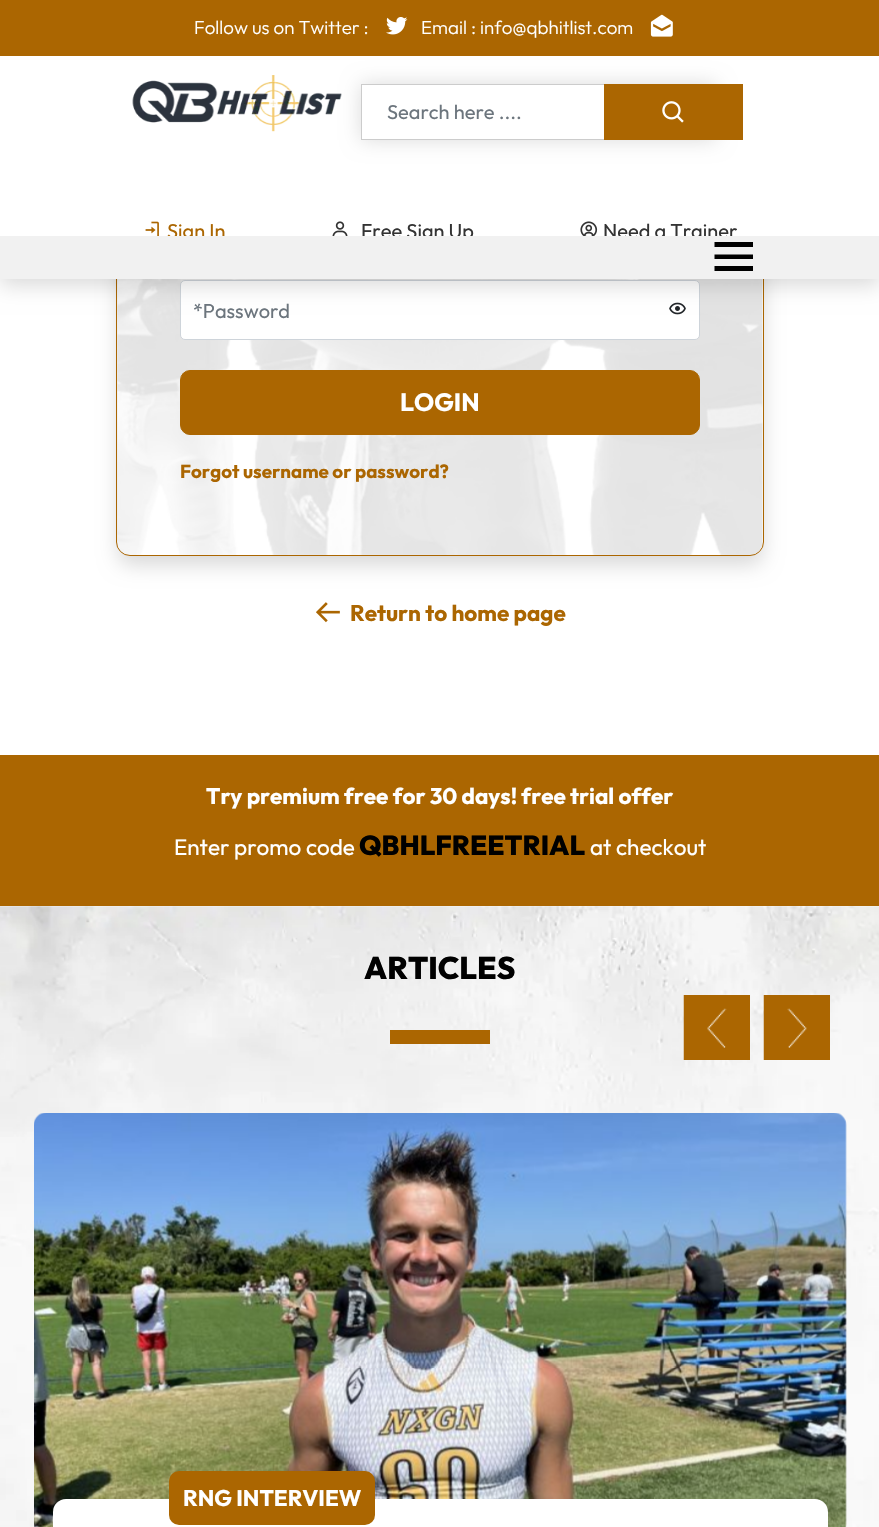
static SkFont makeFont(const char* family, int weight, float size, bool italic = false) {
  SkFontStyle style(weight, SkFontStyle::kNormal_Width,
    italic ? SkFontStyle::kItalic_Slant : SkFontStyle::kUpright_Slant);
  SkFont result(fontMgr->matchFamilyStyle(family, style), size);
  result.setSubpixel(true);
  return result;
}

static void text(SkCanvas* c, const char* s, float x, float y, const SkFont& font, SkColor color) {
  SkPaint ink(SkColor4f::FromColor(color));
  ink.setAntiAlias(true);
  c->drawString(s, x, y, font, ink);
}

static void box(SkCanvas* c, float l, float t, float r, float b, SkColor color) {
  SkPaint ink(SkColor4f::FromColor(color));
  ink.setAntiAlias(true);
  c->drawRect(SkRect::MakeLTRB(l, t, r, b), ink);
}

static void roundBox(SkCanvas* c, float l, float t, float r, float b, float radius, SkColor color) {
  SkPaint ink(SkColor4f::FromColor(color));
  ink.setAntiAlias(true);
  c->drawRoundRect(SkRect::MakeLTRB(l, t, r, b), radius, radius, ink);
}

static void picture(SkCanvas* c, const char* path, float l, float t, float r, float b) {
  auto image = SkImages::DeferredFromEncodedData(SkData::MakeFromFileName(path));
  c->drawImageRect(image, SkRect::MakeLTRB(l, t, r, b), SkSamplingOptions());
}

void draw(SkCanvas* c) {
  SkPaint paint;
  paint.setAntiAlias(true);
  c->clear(0xffffffff);
  paint.setColor(0x26000000);
  paint.setMaskFilter(SkMaskFilter::MakeBlur(kNormal_SkBlurStyle, 10));
  c->drawRoundRect(SkRect::MakeLTRB(118, -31, 763, 565), 13, 13, paint);
  paint.setMaskFilter(nullptr);
  roundBox(c, 118, -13, 763, 555, 13, 0xffffffff);
  picture(c, "img_08.png", 117, 279, 763, 555);
  paint.setColor(0xffab6601);
  c->drawRoundRect(SkRect::MakeLTRB(180.5f, 370.5f, 699.5f, 434.5f), 9.5f, 9.5f, paint);
  paint.setStyle(SkPaint::kStroke_Style);
  paint.setStrokeWidth(1);
  c->drawRoundRect(SkRect::MakeLTRB(180.5f, 370.5f, 699.5f, 434.5f), 9.5f, 9.5f, paint);
  c->drawRoundRect(SkRect::MakeLTRB(116.5f, -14.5f, 763.5f, 555.5f), 13.5f, 13.5f, paint);
  paint.setStyle(SkPaint::kFill_Style);
  paint.setColor(0xffffffff);
  c->drawRoundRect(SkRect::MakeLTRB(180.5f, 280.5f, 699.5f, 339.5f), 4.5f, 4.5f, paint);
  paint.setStyle(SkPaint::kStroke_Style);
  paint.setColor(0xffced4da);
  c->drawRoundRect(SkRect::MakeLTRB(180.5f, 280.5f, 699.5f, 339.5f), 4.5f, 4.5f, paint);
  picture(c, "img_09.png", 669, 302, 686, 315);
  paint.setStyle(SkPaint::kFill_Style);
  paint.setColor(0x26000000);
  paint.setMaskFilter(SkMaskFilter::MakeBlur(kNormal_SkBlurStyle, 10));
  c->drawRect(SkRect::MakeLTRB(0, 6, 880, 285), paint);
  paint.setMaskFilter(nullptr);
  box(c, 0, 56, 879, 236, 0xffffffff);
  box(c, 0, 0, 879, 56, 0xffab6601);
  SkFont face1 = makeFont("Outfit", 300, 18.75f);
  text(c, "Follow us on Twitter :", 194, 34, face1, 0xffffffff);
  picture(c, "img_01.png", 386, 17, 408, 35);
  text(c, "Email : info@qbhitlist.com", 421, 34, face1, 0xffffffff);
  picture(c, "img_02.png", 650, 14, 673, 37);
  c->save();
  c->clipPath(SkPathBuilder(SkPathFillType::kEvenOdd).moveTo(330, 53).lineTo(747, 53).lineTo(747, 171).lineTo(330, 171).close().moveTo(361, 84).lineTo(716, 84).lineTo(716, 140).lineTo(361, 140).close().detach(), true);
  paint.setColor(0x24000000);
  paint.setMaskFilter(SkMaskFilter::MakeBlur(kNormal_SkBlurStyle, 10));
  c->drawRect(SkRect::MakeLTRB(361, 84, 716, 140), paint);
  paint.setMaskFilter(nullptr);
  c->restore();
  picture(c, "img_03.png", 132, 75, 342, 132);
  paint.setStyle(SkPaint::kStroke_Style);
  paint.setColor(0xffcccccc);
  c->drawRect(SkRect::MakeLTRB(361.5f, 84.5f, 715.5f, 139.5f), paint);
  SkFont face2 = makeFont("Outfit", 400, 20);
  text(c, "Search here ....", 387, 119, face2, 0xff6c757d);
  box(c, 604, 84, 743, 140, 0xffab6601);
  picture(c, "img_04.png", 662, 101, 684, 123);
  picture(c, "img_05.png", 145, 221, 159, 236);
  text(c, "Sign In", 167, 238, face2, 0xffab6601);
  picture(c, "img_06.png", 332, 221, 348, 236);
  text(c, "Free Sign Up", 361, 238, face2, 0xff333333);
  picture(c, "img_07.png", 580, 221, 598, 236);
  text(c, "Need a Trainer", 603, 238, face2, 0xff333333);
  box(c, 0, 236, 879, 279, 0xfff1f1f1);
  paint.setStyle(SkPaint::kFill_Style);
  paint.setColor(0xff000000);
  c->drawPath(SkPathBuilder().moveTo(714.5f, 242).lineTo(753, 242).lineTo(753, 247).lineTo(714.5f, 247).close().moveTo(714.5f, 254.5f).lineTo(753, 254.5f).lineTo(753, 259).lineTo(714.5f, 259).close().moveTo(714.5f, 266).lineTo(753, 266).lineTo(753, 271).lineTo(714.5f, 271).close().detach(), paint);
  text(c, "*Password", 193, 318, face2, 0xff6c757d);
  SkFont face3 = makeFont("Outfit", 700, 25);
  text(c, "LOGIN", 400, 411, face3, 0xffffffff);
  SkFont face4 = makeFont("Outfit", 700, 18.75f);
  text(c, "Forgot username or password?", 180, 478, face4, 0xffab6601);
  picture(c, "img_10.png", 316, 602, 340, 623);
  SkFont face5 = makeFont("Outfit", 700, 22.5f);
  text(c, "Return to home page", 350, 621, face5, 0xffab6601);
  box(c, 0, 755, 879, 906, 0xffab6601);
  text(c, "Try premium free for 30 days! free trial offer", 206, 804, face5, 0xffffffff);
  SkFont face6 = makeFont("Outfit", 400, 22.5f);
  text(c, "Enter promo code", 174, 855, face6, 0xffffffff);
  SkFont face7 = makeFont("Outfit", 800, 27.5f);
  text(c, "QBHLFREETRIAL", 359, 855, face7, 0xff000000);
  text(c, "at checkout", 590, 855, face6, 0xffffffff);
  picture(c, "img_11.png", 0, 906, 879, 1527);
  SkFont face8 = makeFont("Outfit", 800, 31.25f);
  text(c, "ARTICLES", 364, 979, face8, 0xff000000);
  box(c, 390, 1030, 490, 1044, 0xffab6601);
  picture(c, "img_12.png", 683, 995, 750, 1060);
  picture(c, "img_13.png", 763, 995, 830, 1060);
  picture(c, "img_14.png", 34, 1113, 847, 1527);
  paint.setColor(0x26000000);
  paint.setMaskFilter(SkMaskFilter::MakeBlur(kNormal_SkBlurStyle, 10));
  c->drawRoundRect(SkRect::MakeLTRB(53, 1509, 828, 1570), 13, 13, paint);
  paint.setMaskFilter(nullptr);
  roundBox(c, 53, 1499, 828, 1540, 13, 0xffffffff);
  roundBox(c, 169, 1471, 375, 1525, 10, 0xffab6601);
  text(c, "RNG INTERVIEW", 183, 1506, face5, 0xffffffff);
}
